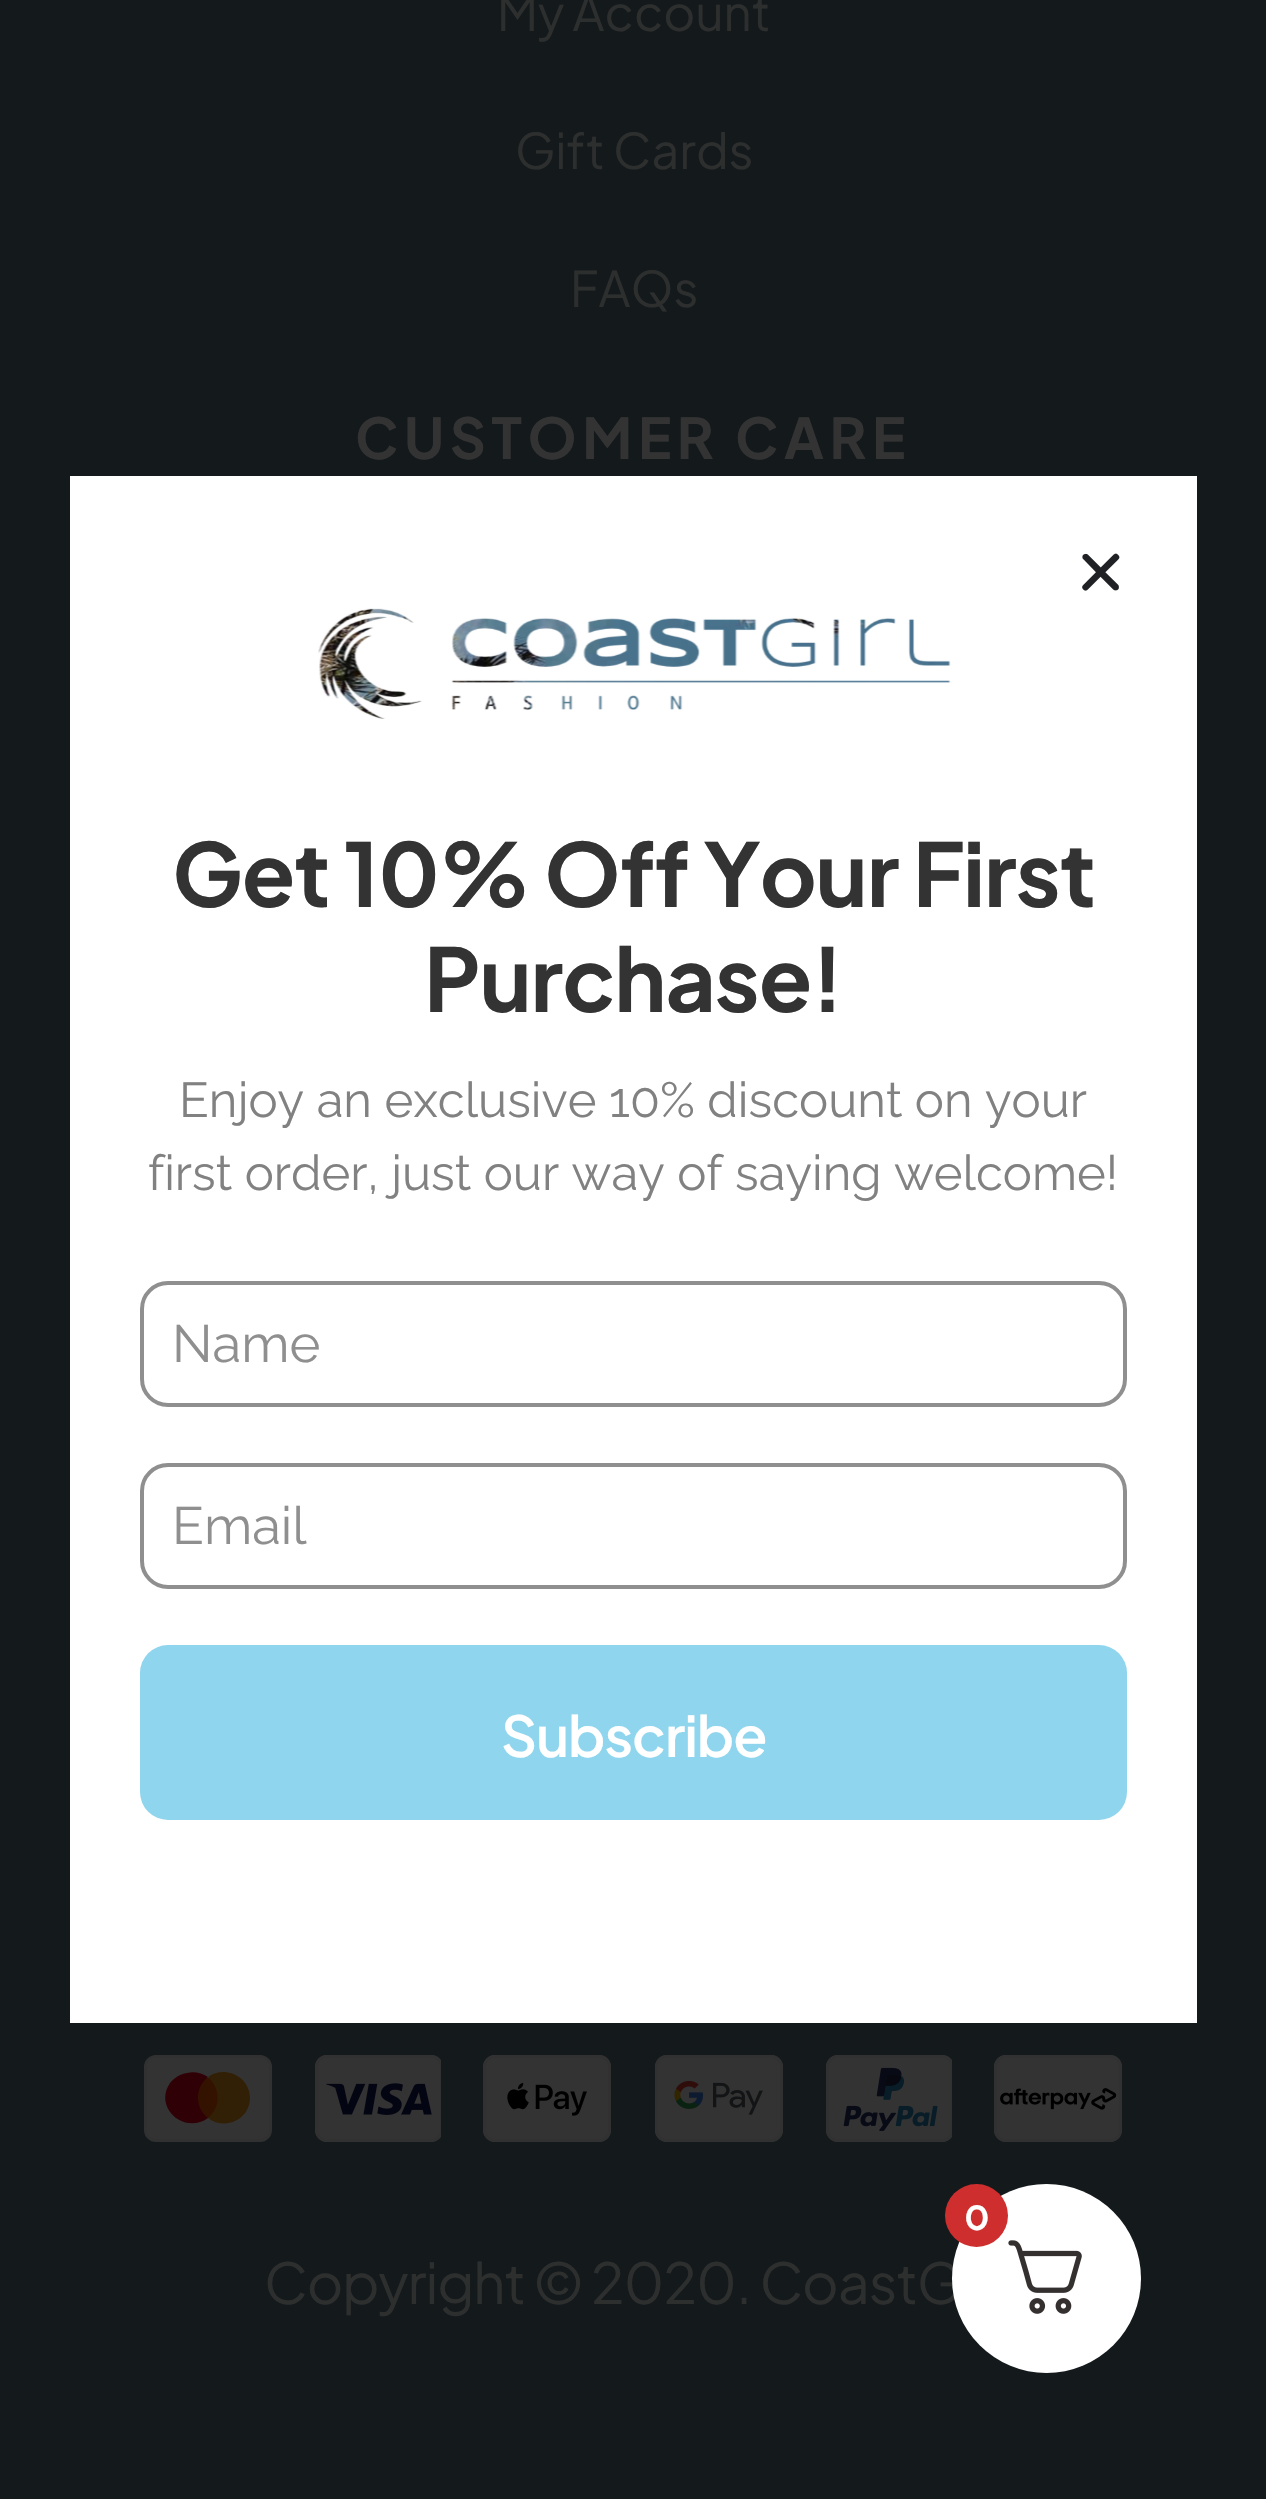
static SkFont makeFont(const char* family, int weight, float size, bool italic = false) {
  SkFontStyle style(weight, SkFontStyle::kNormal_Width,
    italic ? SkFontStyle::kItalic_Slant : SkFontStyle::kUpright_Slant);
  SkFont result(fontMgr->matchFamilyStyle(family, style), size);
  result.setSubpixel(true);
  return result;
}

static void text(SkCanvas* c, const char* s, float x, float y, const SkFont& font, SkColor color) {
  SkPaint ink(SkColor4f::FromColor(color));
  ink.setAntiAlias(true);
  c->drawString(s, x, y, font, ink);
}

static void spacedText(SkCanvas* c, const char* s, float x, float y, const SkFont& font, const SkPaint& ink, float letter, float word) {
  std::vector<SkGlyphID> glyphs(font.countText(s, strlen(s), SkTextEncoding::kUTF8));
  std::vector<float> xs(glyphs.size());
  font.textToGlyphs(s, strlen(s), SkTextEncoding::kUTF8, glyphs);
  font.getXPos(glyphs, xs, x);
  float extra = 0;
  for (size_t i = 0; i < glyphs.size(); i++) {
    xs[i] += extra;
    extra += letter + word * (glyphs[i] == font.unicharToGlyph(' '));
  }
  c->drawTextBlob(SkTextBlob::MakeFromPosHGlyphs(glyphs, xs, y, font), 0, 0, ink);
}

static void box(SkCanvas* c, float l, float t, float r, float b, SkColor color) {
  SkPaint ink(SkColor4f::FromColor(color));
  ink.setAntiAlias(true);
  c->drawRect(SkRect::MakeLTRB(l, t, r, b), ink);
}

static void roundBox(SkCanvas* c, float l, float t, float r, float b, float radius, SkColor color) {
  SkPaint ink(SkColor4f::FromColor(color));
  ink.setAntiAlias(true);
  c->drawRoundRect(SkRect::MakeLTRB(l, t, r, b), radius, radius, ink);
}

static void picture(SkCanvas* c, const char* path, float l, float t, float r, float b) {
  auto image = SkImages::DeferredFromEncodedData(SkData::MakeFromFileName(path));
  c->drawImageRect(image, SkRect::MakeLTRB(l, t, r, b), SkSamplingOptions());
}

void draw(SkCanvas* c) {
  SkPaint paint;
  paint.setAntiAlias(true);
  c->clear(0xff14191c);
  SkFont face1 = makeFont("Plus Jakarta Sans", 400, 49);
  text(c, "My Account", 497, 31, face1, 0xff2d2e2e);
  text(c, "Gift Cards", 515, 169, face1, 0xff2d2e2e);
  text(c, "FAQs", 570, 307, face1, 0xff2d2e2e);
  SkFont face2 = makeFont("Plus Jakarta Sans", 700, 56);
  paint.setColor(0xff333333);
  spacedText(c, "CUSTOMER CARE", 355, 459, face2, paint, 5.6f, 0);
  c->drawRoundRect(SkRect::MakeLTRB(145.5f, 2056.5f, 270.5f, 2140.5f), 10.5f, 10.5f, paint);
  paint.setStyle(SkPaint::kStroke_Style);
  paint.setStrokeWidth(3);
  paint.setColor(0xff313131);
  c->drawRoundRect(SkRect::MakeLTRB(145.5f, 2056.5f, 270.5f, 2140.5f), 10.5f, 10.5f, paint);
  box(c, 198, 2078, 218, 2118, 0xff331300);
  paint.setStyle(SkPaint::kFill_Style);
  paint.setColor(0xff2f0005);
  c->drawPath(SkPathBuilder().moveTo(198, 2098).cubicTo(198, 2089, 202, 2082, 208, 2077).cubicTo(202, 2073, 194, 2071, 187, 2073).cubicTo(180, 2074, 174, 2078, 170, 2083).cubicTo(153, 2108, 185, 2135, 208, 2118).cubicTo(202, 2113, 198, 2106, 198, 2098).close().detach(), paint);
  paint.setColor(0xff312005);
  c->drawPath(SkPathBuilder().moveTo(250, 2098).cubicTo(250, 2120, 224, 2131, 208, 2118).cubicTo(221, 2108, 221, 2088, 208, 2077).cubicTo(224, 2065, 250, 2076, 250, 2098).close().detach(), paint);
  picture(c, "img_01.png", 315, 2055, 441, 2142);
  picture(c, "img_02.png", 483, 2055, 611, 2142);
  picture(c, "img_03.png", 655, 2055, 783, 2142);
  picture(c, "img_04.png", 826, 2055, 952, 2142);
  picture(c, "img_05.png", 994, 2055, 1122, 2142);
  SkFont face3 = makeFont("Plus Jakarta Sans", 400, 56);
  paint.setColor(0xff2d2e2e);
  spacedText(c, "Copyright © 2020. CoastG", 264, 2304, face3, paint, -1.05f, 0);
  box(c, 70, 476, 1197, 2023, 0xffffffff);
  picture(c, "img_06.png", 1082, 553, 1120, 591);
  picture(c, "img_07.png", 318, 608, 951, 719);
  SkFont face4 = makeFont("Plus Jakarta Sans", 700, 87.5f);
  paint.setColor(0xff333333);
  spacedText(c, "Get 10% Off Your First", 172, 907, face4, paint, -1.05f, 0);
  spacedText(c, "Purchase!", 424, 1012, face4, paint, -1.05f, 0);
  SkFont face5 = makeFont("Raleway", 400, 49);
  text(c, "Enjoy an exclusive 10% discount on your", 179, 1117, face5, 0xff818181);
  text(c, "first order, just our way of saying welcome!", 148, 1190, face5, 0xff818181);
  paint.setStyle(SkPaint::kStroke_Style);
  paint.setStrokeWidth(4);
  paint.setColor(0xff8f8f8f);
  c->drawRoundRect(SkRect::MakeLTRB(142, 1283, 1125, 1405), 26, 26, paint);
  SkFont face6 = makeFont("Raleway", 400, 52.5f);
  text(c, "Name", 172, 1362, face6, 0xff8f8f8f);
  c->drawRoundRect(SkRect::MakeLTRB(142, 1465, 1125, 1587), 26, 26, paint);
  text(c, "Email", 172, 1544, face6, 0xff8f8f8f);
  roundBox(c, 140, 1645, 1127, 1820, 28, 0xff8ed5ed);
  SkFont face7 = makeFont("Plus Jakarta Sans", 600, 56);
  paint.setStyle(SkPaint::kFill_Style);
  paint.setColor(0xffffffff);
  spacedText(c, "Subscribe", 501, 1757, face7, paint, -1.05f, 0);
  c->drawCircle(1046.5f, 2278.5f, 94.5f, paint);
  picture(c, "img_08.png", 1008, 2240, 1082, 2314);
  paint.setColor(0xffcf2e2e);
  c->drawCircle(976.5f, 2215.5f, 31.5f, paint);
  SkFont face8 = makeFont("Raleway", 600, 42);
  text(c, "0", 964, 2230, face8, 0xffffffff);
}
